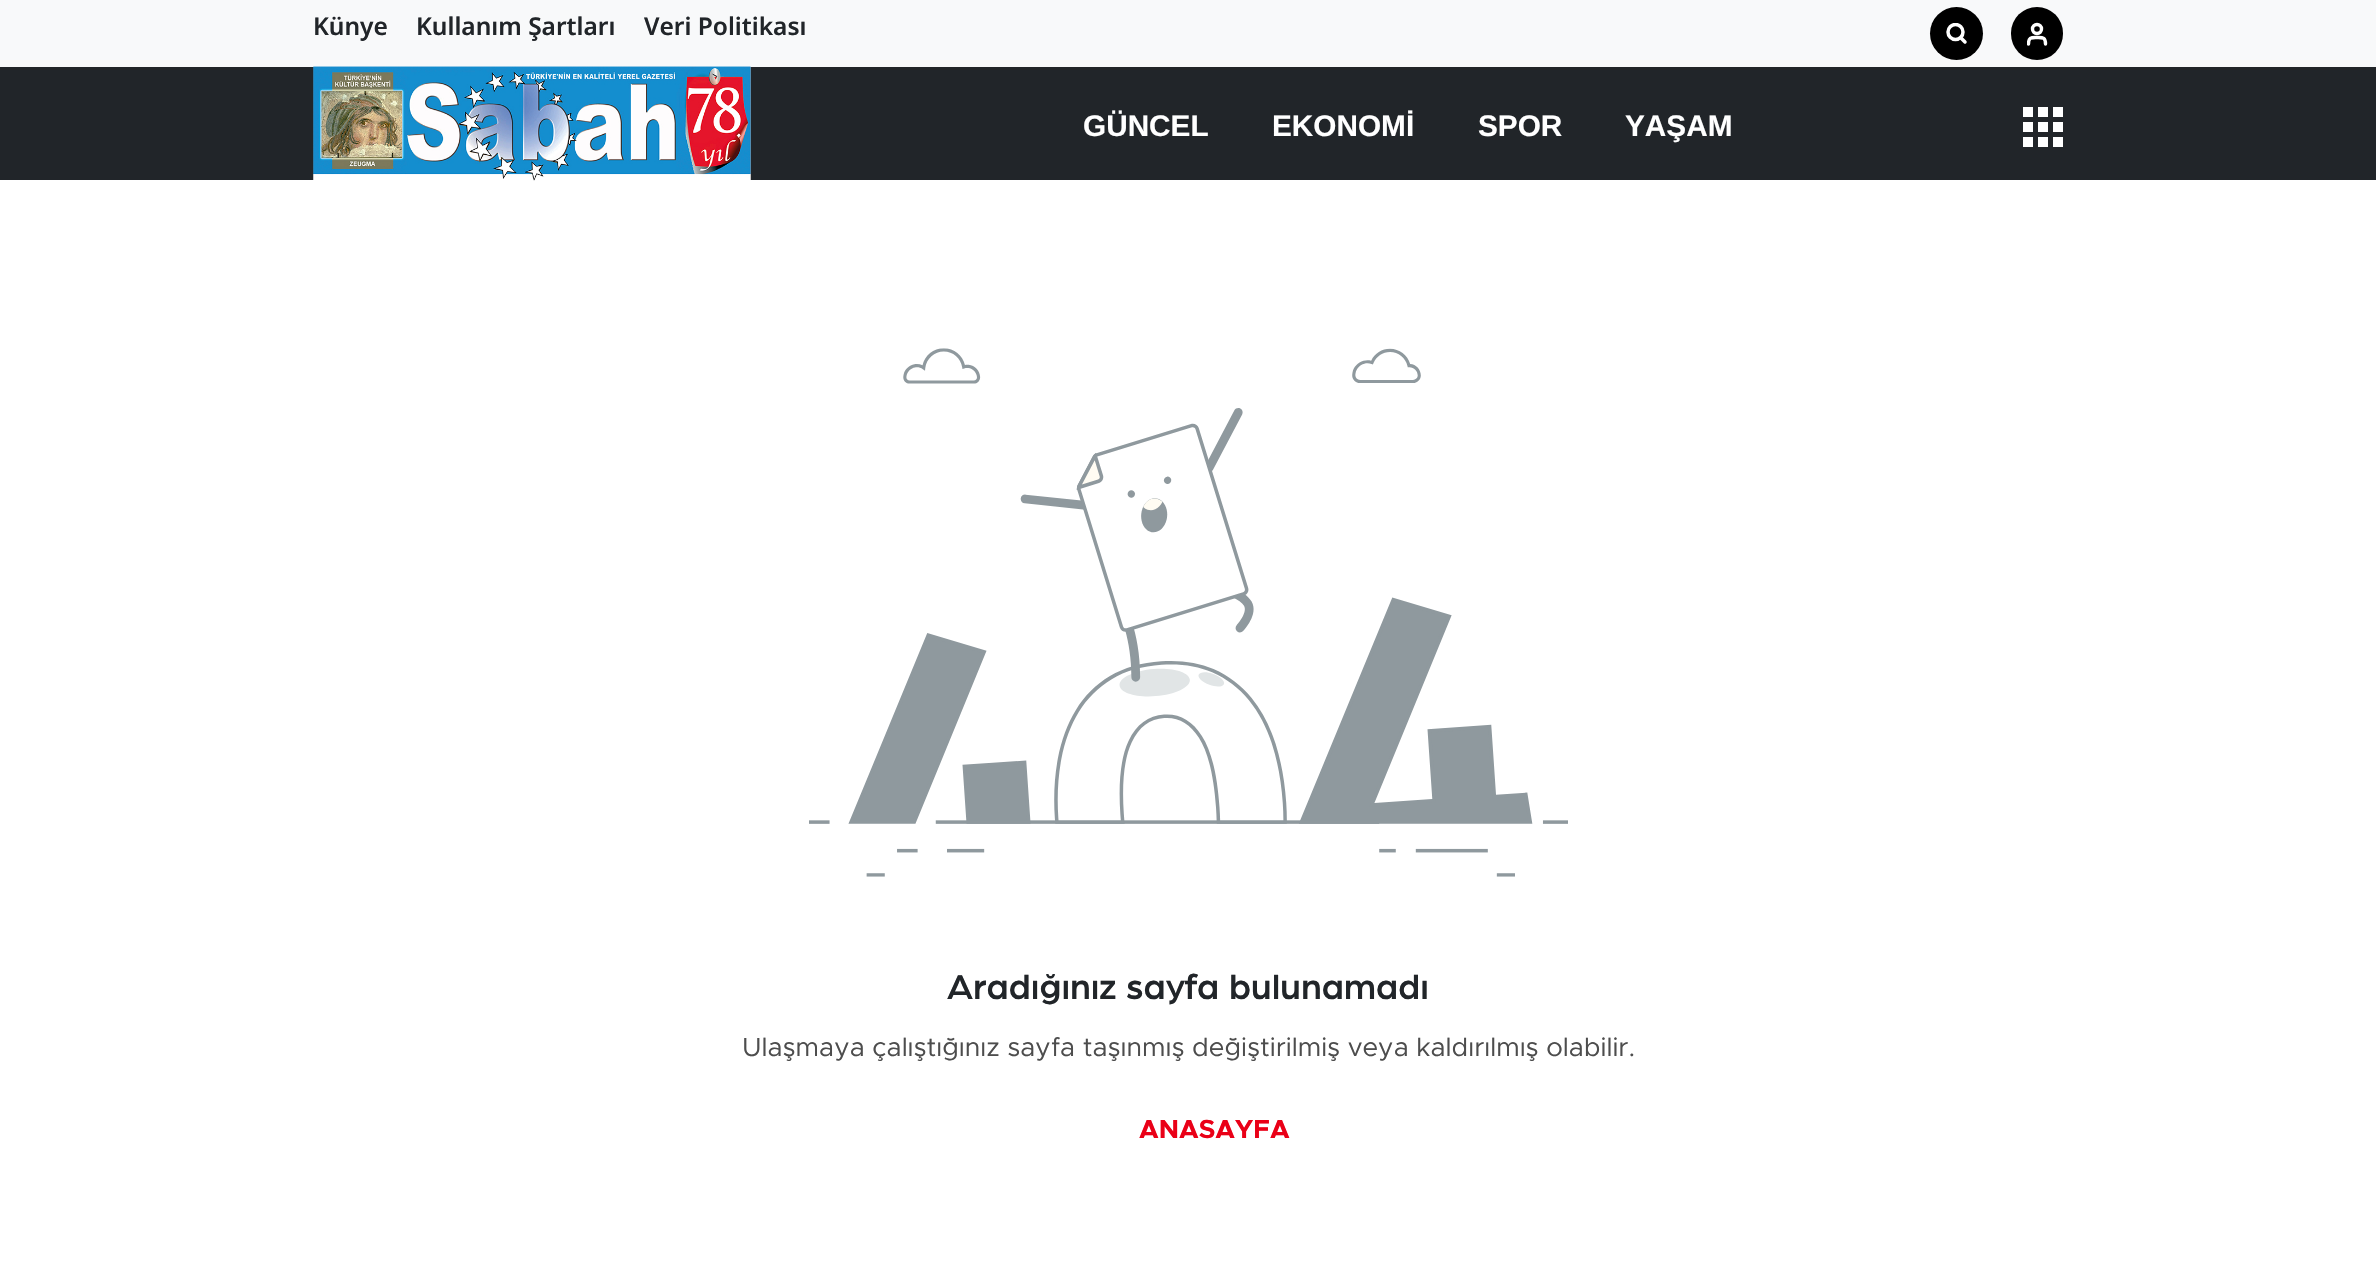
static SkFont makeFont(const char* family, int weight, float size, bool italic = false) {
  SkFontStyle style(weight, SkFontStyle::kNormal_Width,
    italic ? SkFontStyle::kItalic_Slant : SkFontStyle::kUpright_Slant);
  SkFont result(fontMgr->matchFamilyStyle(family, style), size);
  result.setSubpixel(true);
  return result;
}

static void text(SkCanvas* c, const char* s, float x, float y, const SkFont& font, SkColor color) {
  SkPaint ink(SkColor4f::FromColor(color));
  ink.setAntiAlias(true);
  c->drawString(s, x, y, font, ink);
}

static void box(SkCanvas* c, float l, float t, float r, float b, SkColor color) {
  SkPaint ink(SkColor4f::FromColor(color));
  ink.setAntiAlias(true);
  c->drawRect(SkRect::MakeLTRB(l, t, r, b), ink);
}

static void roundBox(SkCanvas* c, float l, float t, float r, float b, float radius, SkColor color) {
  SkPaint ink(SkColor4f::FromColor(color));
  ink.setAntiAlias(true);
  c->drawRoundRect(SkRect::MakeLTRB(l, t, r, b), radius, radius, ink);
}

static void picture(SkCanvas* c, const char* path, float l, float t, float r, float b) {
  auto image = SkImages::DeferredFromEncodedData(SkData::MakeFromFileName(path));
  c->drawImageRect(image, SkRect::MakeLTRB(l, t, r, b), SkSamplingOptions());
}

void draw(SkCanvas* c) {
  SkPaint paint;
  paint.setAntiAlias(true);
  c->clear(0xffffffff);
  box(c, 0, 0, 2376, 67, 0xfff8f9fa);
  SkFont face1 = makeFont("Noto Sans", 600, 24.5f);
  text(c, "Künye", 313, 35, face1, 0xff212529);
  text(c, "Kullanım Şartları", 416, 35, face1, 0xff212529);
  text(c, "Veri Politikası", 644, 35, face1, 0xff212529);
  paint.setColor(0xff000000);
  c->drawCircle(1956.5f, 33.5f, 26.5f, paint);
  c->save();
  c->clipRect(SkRect::MakeLTRB(1946, 23, 1967, 44));
  paint.setStyle(SkPaint::kStroke_Style);
  paint.setStrokeWidth(3.5f);
  paint.setColor(0xffffffff);
  c->drawCircle(1955.5f, 32, 7.5f, paint);
  c->restore();
  paint.setStrokeCap(SkPaint::kRound_Cap);
  paint.setStrokeJoin(SkPaint::kRound_Join);
  c->drawPath(SkPathBuilder().moveTo(1965, 42).lineTo(1961, 38).detach(), paint);
  roundBox(c, 2011, 7, 2063, 60, 26, 0xff000000);
  c->save();
  c->clipRect(SkRect::MakeLTRB(2027, 23, 2048, 46));
  paint.setStrokeWidth(3.4f);
  c->drawPath(SkPathBuilder().moveTo(2045.5f, 44).cubicTo(2045.5f, 37, 2043, 37.5f, 2037, 37.5f).cubicTo(2031, 37.5f, 2028.5f, 37, 2028.5f, 44).detach(), paint);
  c->restore();
  paint.setStrokeCap(SkPaint::kButt_Cap);
  paint.setStrokeJoin(SkPaint::kMiter_Join);
  c->drawCircle(2037, 29, 4.5f, paint);
  box(c, 0, 67, 2376, 180, 0xff212529);
  picture(c, "img_01.png", 313, 66, 751, 181);
  SkFont face2 = makeFont("Liberation Sans", 700, 29.75f);
  text(c, "GÜNCEL", 1083, 136, face2, 0xffffffff);
  text(c, "EKONOMİ", 1272, 136, face2, 0xffffffff);
  text(c, "SPOR", 1478, 136, face2, 0xffffffff);
  text(c, "YAŞAM", 1625, 136, face2, 0xffffffff);
  picture(c, "img_02.png", 2023, 107, 2063, 147);
  picture(c, "img_03.png", 809, 348, 1568, 877);
  SkFont face3 = makeFont("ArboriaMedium", 500, 36.75f);
  text(c, "Aradığınız sayfa bulunamadı", 947, 999, face3, 0xff212529);
  SkFont face4 = makeFont("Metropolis", 400, 26.25f);
  text(c, "Ulaşmaya çalıştığınız sayfa taşınmış değiştirilmiş veya kaldırılmış olabilir.", 742, 1056, face4, 0xff4d4d4d);
  SkFont face5 = makeFont("Metropolis", 700, 26.25f);
  text(c, "ANASAYFA", 1139, 1138, face5, 0xffea0017);
}
